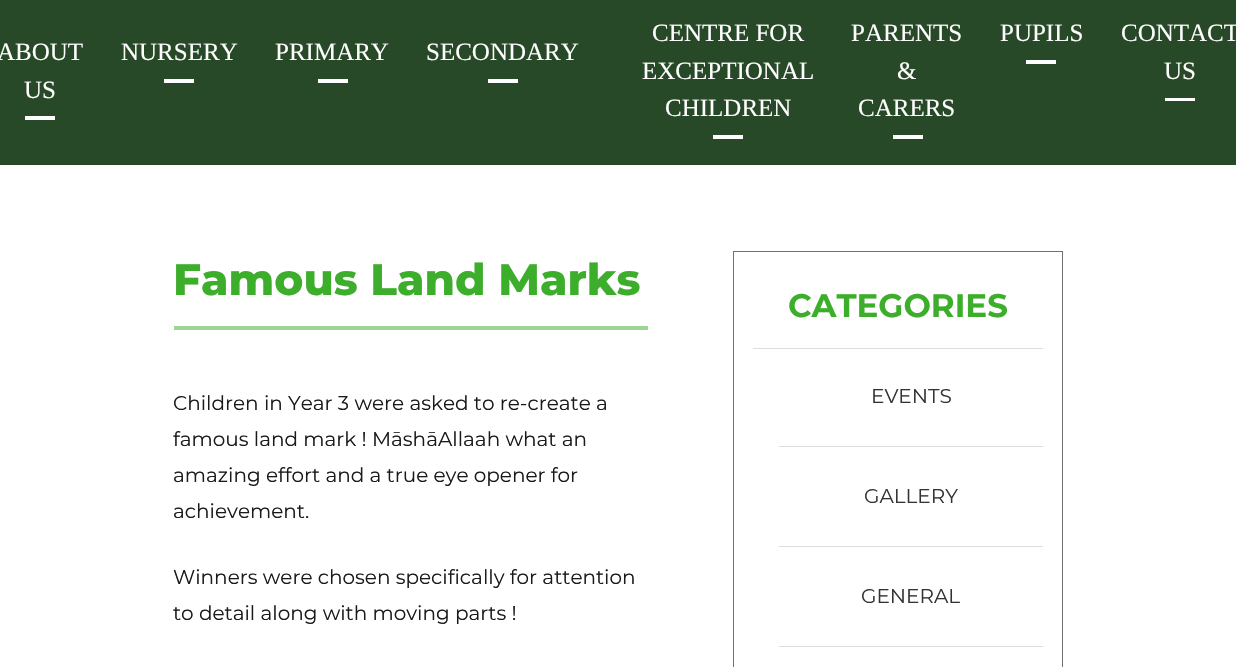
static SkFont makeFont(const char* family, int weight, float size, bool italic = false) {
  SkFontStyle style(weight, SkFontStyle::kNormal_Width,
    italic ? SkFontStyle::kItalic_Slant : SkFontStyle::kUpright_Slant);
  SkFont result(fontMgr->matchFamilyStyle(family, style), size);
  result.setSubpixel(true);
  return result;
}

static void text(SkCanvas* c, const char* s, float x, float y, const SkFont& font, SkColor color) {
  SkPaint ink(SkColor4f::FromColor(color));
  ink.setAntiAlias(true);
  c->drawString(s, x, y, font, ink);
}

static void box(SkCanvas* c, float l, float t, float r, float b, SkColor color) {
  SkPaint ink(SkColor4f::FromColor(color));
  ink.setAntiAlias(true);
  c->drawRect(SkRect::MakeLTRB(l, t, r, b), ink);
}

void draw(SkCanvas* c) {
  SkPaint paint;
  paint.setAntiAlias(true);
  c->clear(0xffffffff);
  box(c, 0, 0, 1236, 165, 0xff284928);
  SkFont face1 = makeFont("Liberation Serif", 400, 25);
  text(c, "ABOUT", -3, 60, face1, 0xffffffff);
  text(c, "US", 24, 98, face1, 0xffffffff);
  box(c, 25, 116, 55, 120, 0xffffffff);
  text(c, "NURSERY", 121, 60, face1, 0xffffffff);
  box(c, 164, 79, 194, 83, 0xffffffff);
  text(c, "PRIMARY", 275, 60, face1, 0xffffffff);
  box(c, 318, 79, 348, 83, 0xffffffff);
  text(c, "SECONDARY", 426, 60, face1, 0xffffffff);
  box(c, 488, 79, 518, 83, 0xffffffff);
  text(c, "CENTRE FOR", 652, 41, face1, 0xffffffff);
  text(c, "EXCEPTIONAL", 642, 79, face1, 0xffffffff);
  text(c, "CHILDREN", 665, 116, face1, 0xffffffff);
  box(c, 713, 135, 743, 139, 0xffffffff);
  text(c, "PARENTS", 851, 41, face1, 0xffffffff);
  text(c, "&", 897, 79, face1, 0xffffffff);
  text(c, "CARERS", 858, 116, face1, 0xffffffff);
  box(c, 893, 135, 923, 139, 0xffffffff);
  text(c, "PUPILS", 1000, 41, face1, 0xffffffff);
  box(c, 1026, 60, 1056, 64, 0xffffffff);
  text(c, "CONTACT", 1121, 41, face1, 0xffffffff);
  text(c, "US", 1164, 79, face1, 0xffffffff);
  box(c, 1165, 98, 1195, 101, 0xffffffff);
  box(c, 174, 326, 648, 330, 0xff9dd694);
  SkFont face2 = makeFont("Montserrat", 800, 43.75f);
  text(c, "Famous Land Marks", 173, 295, face2, 0xff3dae2b);
  SkFont face3 = makeFont("Montserrat", 400, 20);
  text(c, "Children in Year 3 were asked to re-create a", 173, 410, face3, 0xff1a1a1a);
  text(c, "famous land mark ! MāshāAllaah what an", 173, 446, face3, 0xff1a1a1a);
  text(c, "amazing effort and a true eye opener for", 173, 482, face3, 0xff1a1a1a);
  text(c, "achievement.", 173, 518, face3, 0xff1a1a1a);
  text(c, "Winners were chosen specifically for attention", 173, 584, face3, 0xff1a1a1a);
  text(c, "to detail along with moving parts !", 173, 620, face3, 0xff1a1a1a);
  paint.setStyle(SkPaint::kStroke_Style);
  paint.setStrokeWidth(1);
  paint.setColor(0xff707070);
  c->drawRect(SkRect::MakeLTRB(733.5f, 251.5f, 1062.5f, 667.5f), paint);
  box(c, 753, 348, 1043, 349, 0xffdddddd);
  SkFont face4 = makeFont("Montserrat", 700, 32.5f);
  text(c, "CATEGORIES", 788, 317, face4, 0xff3dae2b);
  box(c, 779, 446, 1043, 447, 0xffdddddd);
  text(c, "EVENTS", 871, 403, face3, 0xff333333);
  box(c, 779, 546, 1043, 547, 0xffdddddd);
  text(c, "GALLERY", 864, 503, face3, 0xff333333);
  box(c, 779, 646, 1043, 647, 0xffdddddd);
  text(c, "GENERAL", 861, 603, face3, 0xff333333);
}
